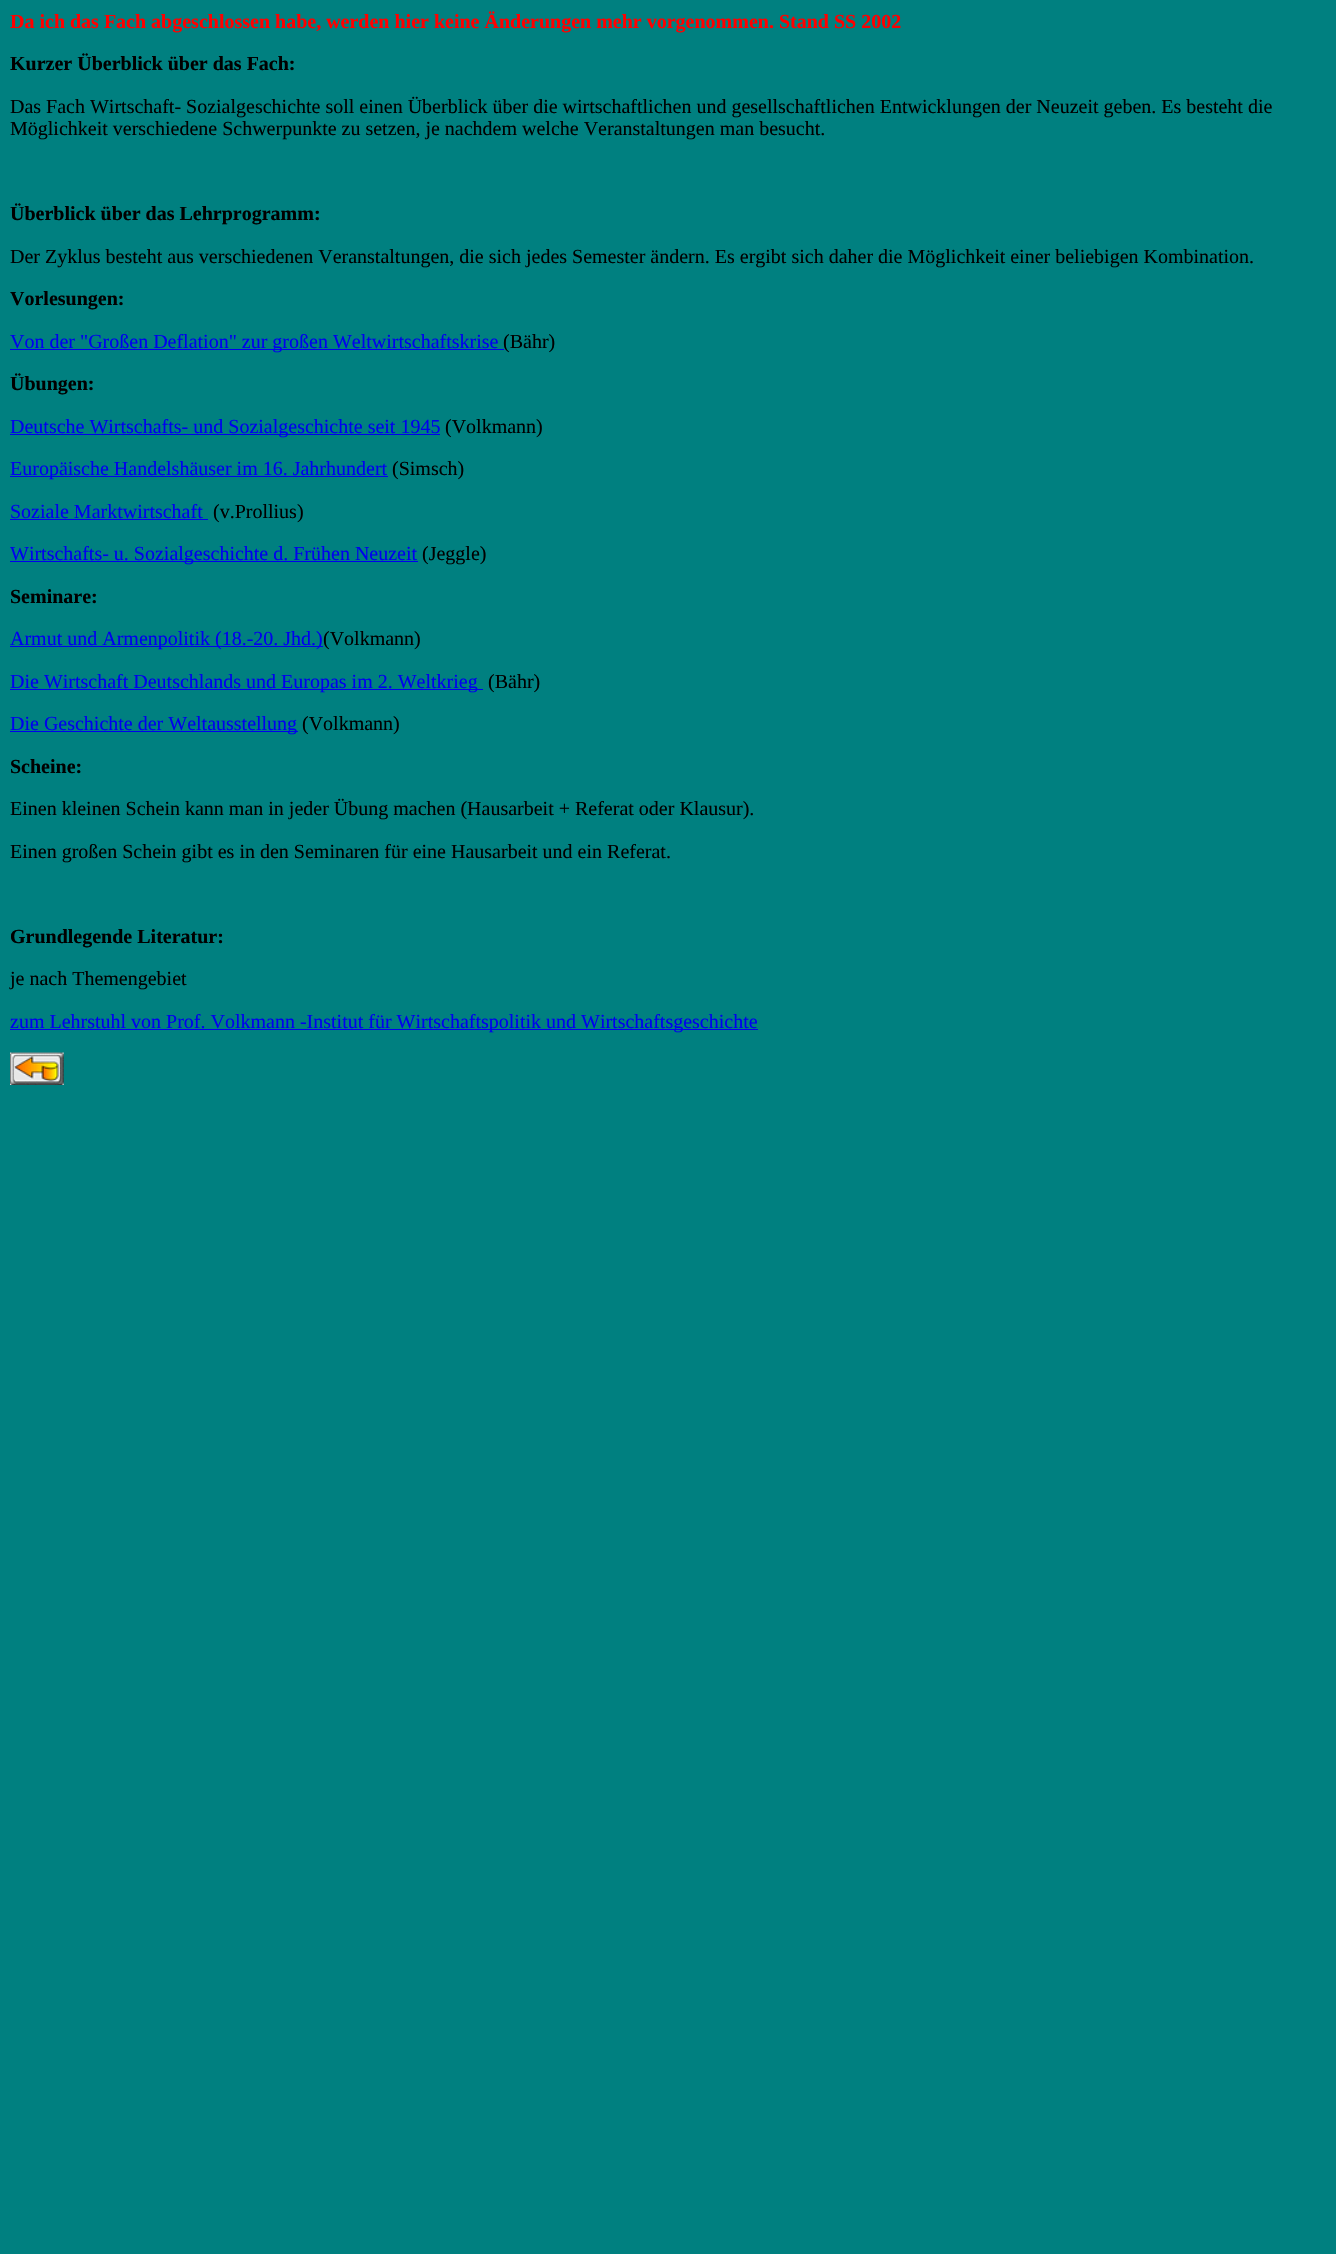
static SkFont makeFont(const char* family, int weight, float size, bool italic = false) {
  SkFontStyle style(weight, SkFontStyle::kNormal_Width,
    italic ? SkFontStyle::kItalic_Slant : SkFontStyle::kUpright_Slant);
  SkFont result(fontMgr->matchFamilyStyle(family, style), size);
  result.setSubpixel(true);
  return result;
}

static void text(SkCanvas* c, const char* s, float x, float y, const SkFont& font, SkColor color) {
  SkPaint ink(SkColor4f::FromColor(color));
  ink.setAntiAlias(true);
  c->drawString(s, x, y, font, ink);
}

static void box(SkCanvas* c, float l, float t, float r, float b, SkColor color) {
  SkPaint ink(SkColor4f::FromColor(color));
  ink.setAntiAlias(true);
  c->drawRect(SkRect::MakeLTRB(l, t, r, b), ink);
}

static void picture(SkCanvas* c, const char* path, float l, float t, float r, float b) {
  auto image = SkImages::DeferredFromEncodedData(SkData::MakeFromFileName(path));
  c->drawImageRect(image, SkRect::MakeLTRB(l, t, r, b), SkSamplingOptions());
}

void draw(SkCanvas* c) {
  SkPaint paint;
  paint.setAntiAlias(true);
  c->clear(0xff008080);
  SkFont face1 = makeFont("Liberation Serif", 700, 20);
  text(c, "Da ich das Fach abgeschlossen habe, werden hier keine Änderungen mehr vorgenommen. Stand SS 2002", 10, 28, face1, 0xffff0000);
  text(c, "Kurzer Überblick über das Fach:", 10, 70, face1, 0xff000000);
  SkFont face2 = makeFont("Liberation Serif", 400, 20);
  text(c, "Das Fach Wirtschaft- Sozialgeschichte soll einen Überblick über die wirtschaftlichen und gesellschaftlichen Entwicklungen der Neuzeit geben. Es besteht die", 10, 113, face2, 0xff000000);
  text(c, "Möglichkeit verschiedene Schwerpunkte zu setzen, je nachdem welche Veranstaltungen man besucht.", 10, 135, face2, 0xff000000);
  text(c, "Überblick über das Lehrprogramm:", 10, 220, face1, 0xff000000);
  text(c, "Der Zyklus besteht aus verschiedenen Veranstaltungen, die sich jedes Semester ändern. Es ergibt sich daher die Möglichkeit einer beliebigen Kombination.", 10, 263, face2, 0xff000000);
  text(c, "Vorlesungen:", 10, 305, face1, 0xff000000);
  box(c, 10, 349, 504, 350, 0xff0000ee);
  text(c, "Von der \"Großen Deflation\" zur großen Weltwirtschaftskrise", 10, 348, face2, 0xff0000ee);
  text(c, "(Bähr)", 503, 348, face2, 0xff000000);
  text(c, "Übungen:", 10, 390, face1, 0xff000000);
  box(c, 10, 434, 440, 435, 0xff0000ee);
  text(c, "Deutsche Wirtschafts- und Sozialgeschichte seit 1945", 10, 433, face2, 0xff0000ee);
  text(c, "(Volkmann)", 445, 433, face2, 0xff000000);
  box(c, 10, 476, 388, 477, 0xff0000ee);
  text(c, "Europäische Handelshäuser im 16. Jahrhundert", 10, 475, face2, 0xff0000ee);
  text(c, "(Simsch)", 392, 475, face2, 0xff000000);
  text(c, "Soziale Marktwirtschaft", 10, 518, face2, 0xff0000ee);
  box(c, 10, 519, 208, 520, 0xff0000ee);
  text(c, "(v.Prollius)", 213, 518, face2, 0xff000000);
  box(c, 10, 561, 418, 562, 0xff0000ee);
  text(c, "Wirtschafts- u. Sozialgeschichte d. Frühen Neuzeit", 10, 560, face2, 0xff0000ee);
  text(c, "(Jeggle)", 422, 560, face2, 0xff000000);
  text(c, "Seminare:", 10, 603, face1, 0xff000000);
  box(c, 10, 646, 323, 647, 0xff0000ee);
  text(c, "Armut und Armenpolitik (18.-20. Jhd.)", 10, 645, face2, 0xff0000ee);
  text(c, "(Volkmann)", 323, 645, face2, 0xff000000);
  box(c, 10, 689, 483, 690, 0xff0000ee);
  text(c, "Die Wirtschaft Deutschlands und Europas im 2. Weltkrieg", 10, 688, face2, 0xff0000ee);
  text(c, "(Bähr)", 488, 688, face2, 0xff000000);
  box(c, 10, 731, 298, 732, 0xff0000ee);
  text(c, "Die Geschichte der Weltausstellung", 10, 730, face2, 0xff0000ee);
  text(c, "(Volkmann)", 302, 730, face2, 0xff000000);
  text(c, "Scheine:", 10, 773, face1, 0xff000000);
  text(c, "Einen kleinen Schein kann man in jeder Übung machen (Hausarbeit + Referat oder Klausur).", 10, 815, face2, 0xff000000);
  text(c, "Einen großen Schein gibt es in den Seminaren für eine Hausarbeit und ein Referat.", 10, 858, face2, 0xff000000);
  text(c, "Grundlegende Literatur:", 10, 943, face1, 0xff000000);
  text(c, "je nach Themengebiet", 10, 985, face2, 0xff000000);
  box(c, 10, 1029, 758, 1030, 0xff0000ee);
  text(c, "zum Lehrstuhl von Prof. Volkmann -Institut für Wirtschaftspolitik und Wirtschaftsgeschichte", 10, 1028, face2, 0xff0000ee);
  picture(c, "img_01.png", 10, 1052, 64, 1085);
}
